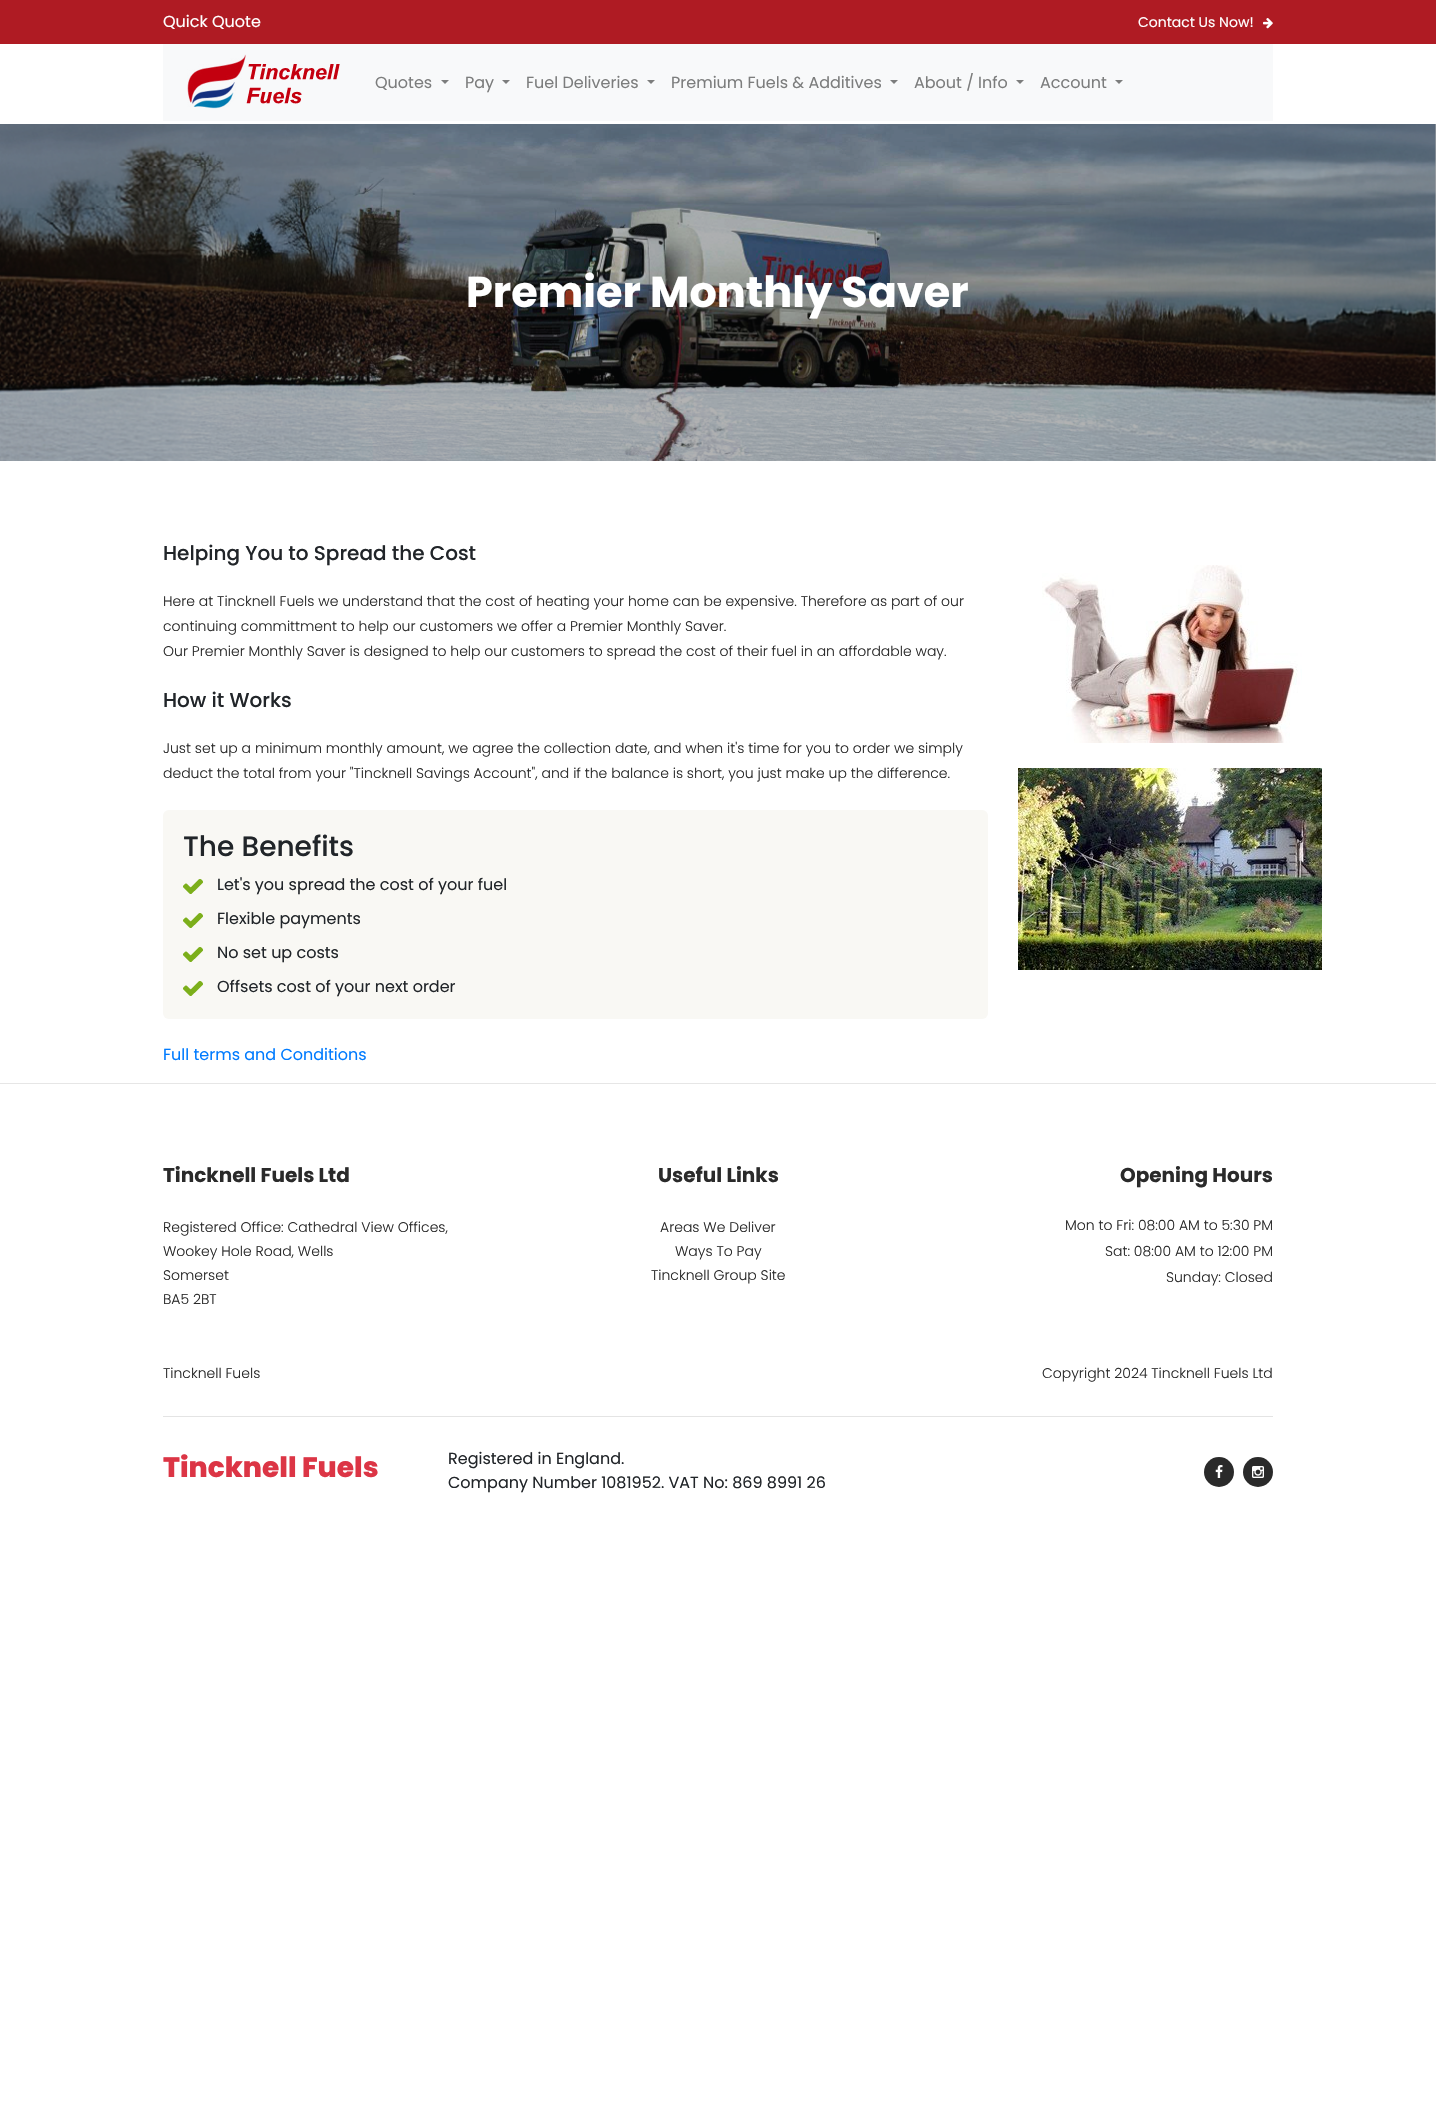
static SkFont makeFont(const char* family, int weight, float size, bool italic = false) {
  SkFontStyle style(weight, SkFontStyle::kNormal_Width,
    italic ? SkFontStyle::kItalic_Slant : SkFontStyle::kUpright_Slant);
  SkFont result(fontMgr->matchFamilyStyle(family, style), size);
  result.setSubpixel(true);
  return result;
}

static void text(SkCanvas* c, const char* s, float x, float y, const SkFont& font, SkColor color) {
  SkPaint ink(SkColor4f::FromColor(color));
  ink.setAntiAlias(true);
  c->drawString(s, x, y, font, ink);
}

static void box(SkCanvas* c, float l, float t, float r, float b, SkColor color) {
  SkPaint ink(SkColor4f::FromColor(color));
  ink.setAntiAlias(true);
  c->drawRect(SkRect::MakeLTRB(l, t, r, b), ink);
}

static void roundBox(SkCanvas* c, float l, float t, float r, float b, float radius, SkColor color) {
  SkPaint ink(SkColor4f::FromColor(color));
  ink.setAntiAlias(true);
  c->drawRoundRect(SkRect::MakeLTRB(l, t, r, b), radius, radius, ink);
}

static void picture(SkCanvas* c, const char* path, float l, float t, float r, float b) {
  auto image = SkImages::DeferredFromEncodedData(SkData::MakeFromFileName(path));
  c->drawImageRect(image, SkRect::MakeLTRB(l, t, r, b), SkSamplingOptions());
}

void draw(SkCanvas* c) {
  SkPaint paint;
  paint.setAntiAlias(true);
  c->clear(0xffffffff);
  box(c, 1435, 124, 1436, 461, 0xffb3b3b3);
  box(c, 0, 0, 1436, 44, 0xffaf1b23);
  SkFont face1 = makeFont("Poppins", 400, 16);
  text(c, "Quick Quote", 163, 27, face1, 0xffffffff);
  SkFont face2 = makeFont("Poppins", 400, 14);
  text(c, "Contact Us Now!", 1138, 27, face2, 0xffffffff);
  picture(c, "img_01.png", 1263, 18, 1273, 29);
  box(c, 163, 44, 1273, 121, 0xfff8f9fa);
  picture(c, "img_02.png", 187, 54, 340, 109);
  text(c, "Quotes", 375, 88, face1, 0xff7c7d7d);
  paint.setColor(0xff7c7d7d);
  c->drawPath(SkPathBuilder().moveTo(441, 80).lineTo(449, 80).lineTo(445, 84).close().detach(), paint);
  text(c, "Pay", 465, 88, face1, 0xff7c7d7d);
  c->drawPath(SkPathBuilder().moveTo(502, 80).lineTo(510, 80).lineTo(506, 84).close().detach(), paint);
  text(c, "Fuel Deliveries", 526, 88, face1, 0xff7c7d7d);
  c->drawPath(SkPathBuilder().moveTo(647, 80).lineTo(655, 80).lineTo(651, 84).close().detach(), paint);
  text(c, "Premium Fuels & Additives", 671, 88, face1, 0xff7c7d7d);
  c->drawPath(SkPathBuilder().moveTo(890, 80).lineTo(898, 80).lineTo(894, 84).close().detach(), paint);
  text(c, "About / Info", 914, 88, face1, 0xff7c7d7d);
  c->drawPath(SkPathBuilder().moveTo(1016, 80).lineTo(1024, 80).lineTo(1020, 84).close().detach(), paint);
  text(c, "Account", 1040, 88, face1, 0xff7c7d7d);
  c->drawPath(SkPathBuilder().moveTo(1115, 80).lineTo(1123, 80).lineTo(1119, 84).close().detach(), paint);
  picture(c, "img_03.png", 0, 124, 1436, 461);
  SkFont face3 = makeFont("Poppins", 700, 43);
  text(c, "Premier Monthly Saver", 466, 307, face3, 0xffffffff);
  SkFont face4 = makeFont("Poppins", 500, 20);
  text(c, "Helping You to Spread the Cost", 163, 560, face4, 0xff212529);
  SkFont face5 = makeFont("Poppins", 300, 14);
  text(c, "Here at Tincknell Fuels we understand that the cost of heating your home can be expensive. Therefore as part of our", 163, 606, face5, 0xff2a2a2a);
  text(c, "continuing committment to help our customers we offer a Premier Monthly Saver.", 163, 631, face5, 0xff2a2a2a);
  text(c, "Our Premier Monthly Saver is designed to help our customers to spread the cost of their fuel in an affordable way.", 163, 656, face5, 0xff2a2a2a);
  text(c, "How it Works", 163, 707, face4, 0xff212529);
  text(c, "Just set up a minimum monthly amount, we agree the collection date, and when it's time for you to order we simply", 163, 753, face5, 0xff2a2a2a);
  text(c, "deduct the total from your \"Tincknell Savings Account\", and if the balance is short, you just make up the difference.", 163, 778, face5, 0xff2a2a2a);
  roundBox(c, 163, 810, 988, 1019, 6, 0xfff9f8f4);
  SkFont face6 = makeFont("Poppins", 500, 28);
  text(c, "The Benefits", 183, 856, face6, 0xff212529);
  picture(c, "img_04.png", 183, 879, 203, 894);
  text(c, "Let's you spread the cost of your fuel", 217, 890, face1, 0xff212529);
  picture(c, "img_04.png", 183, 913, 203, 928);
  text(c, "Flexible payments", 217, 924, face1, 0xff212529);
  picture(c, "img_04.png", 183, 947, 203, 962);
  text(c, "No set up costs", 217, 958, face1, 0xff212529);
  picture(c, "img_04.png", 183, 981, 203, 996);
  text(c, "Offsets cost of your next order", 217, 992, face1, 0xff212529);
  text(c, "Full terms and Conditions", 163, 1060, face1, 0xff007bff);
  picture(c, "img_05.png", 1042, 565, 1302, 743);
  picture(c, "img_06.png", 1018, 768, 1322, 970);
  box(c, 0, 1083, 1436, 1084, 0xffe6e6e6);
  SkFont face7 = makeFont("Poppins", 700, 20);
  text(c, "Tincknell Fuels Ltd", 163, 1182, face7, 0xff2a2a2a);
  text(c, "Registered Office: Cathedral View Offices,", 163, 1232, face5, 0xff2a2a2a);
  text(c, "Wookey Hole Road, Wells", 163, 1256, face5, 0xff2a2a2a);
  text(c, "Somerset", 163, 1280, face5, 0xff2a2a2a);
  text(c, "BA5 2BT", 163, 1304, face5, 0xff2a2a2a);
  text(c, "Useful Links", 658, 1182, face7, 0xff2a2a2a);
  text(c, "Areas We Deliver", 660, 1232, face5, 0xff2a2a2a);
  text(c, "Ways To Pay", 675, 1256, face5, 0xff2a2a2a);
  text(c, "Tincknell Group Site", 651, 1280, face5, 0xff2a2a2a);
  text(c, "Opening Hours", 1120, 1182, face7, 0xff2a2a2a);
  text(c, "Mon to Fri: 08:00 AM to 5:30 PM", 1065, 1230, face5, 0xff2a2a2a);
  text(c, "Sat: 08:00 AM to 12:00 PM", 1105, 1256, face5, 0xff2a2a2a);
  text(c, "Sunday: Closed", 1166, 1282, face5, 0xff2a2a2a);
  text(c, "Tincknell Fuels", 163, 1378, face5, 0xff2a2a2a);
  text(c, "Copyright 2024 Tincknell Fuels Ltd", 1042, 1378, face5, 0xff2a2a2a);
  box(c, 163, 1416, 1273, 1417, 0xffe4e4e4);
  SkFont face8 = makeFont("Poppins", 800, 28);
  text(c, "Tincknell Fuels", 163, 1477, face8, 0xffdc3545);
  text(c, "Registered in England.", 448, 1464, face1, 0xff212529);
  text(c, "Company Number 1081952. VAT No: 869 8991 26", 448, 1488, face1, 0xff212529);
  paint.setColor(0xff2a2a2a);
  c->drawCircle(1219, 1472, 15, paint);
  picture(c, "img_07.png", 1215, 1465, 1223, 1478);
  c->drawCircle(1258, 1472, 15, paint);
  picture(c, "img_08.png", 1252, 1466, 1264, 1478);
}
